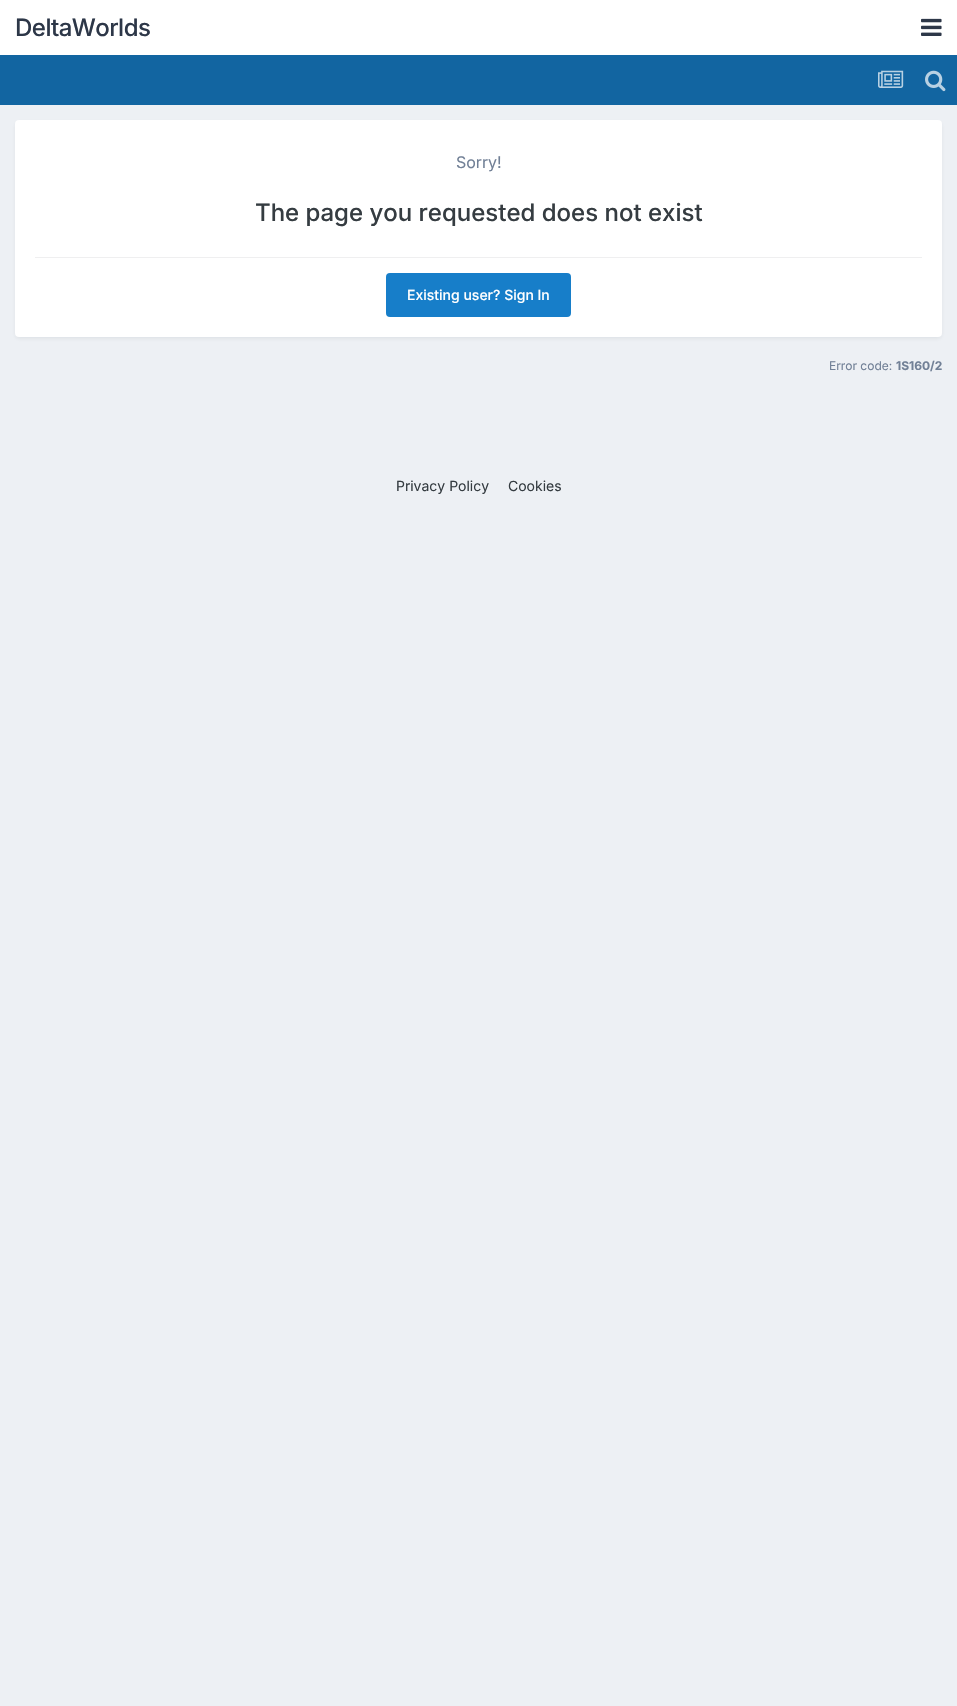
static SkFont makeFont(const char* family, int weight, float size, bool italic = false) {
  SkFontStyle style(weight, SkFontStyle::kNormal_Width,
    italic ? SkFontStyle::kItalic_Slant : SkFontStyle::kUpright_Slant);
  SkFont result(fontMgr->matchFamilyStyle(family, style), size);
  result.setSubpixel(true);
  return result;
}

static void text(SkCanvas* c, const char* s, float x, float y, const SkFont& font, SkColor color) {
  SkPaint ink(SkColor4f::FromColor(color));
  ink.setAntiAlias(true);
  c->drawString(s, x, y, font, ink);
}

static void spacedText(SkCanvas* c, const char* s, float x, float y, const SkFont& font, const SkPaint& ink, float letter, float word) {
  std::vector<SkGlyphID> glyphs(font.countText(s, strlen(s), SkTextEncoding::kUTF8));
  std::vector<float> xs(glyphs.size());
  font.textToGlyphs(s, strlen(s), SkTextEncoding::kUTF8, glyphs);
  font.getXPos(glyphs, xs, x);
  float extra = 0;
  for (size_t i = 0; i < glyphs.size(); i++) {
    xs[i] += extra;
    extra += letter + word * (glyphs[i] == font.unicharToGlyph(' '));
  }
  c->drawTextBlob(SkTextBlob::MakeFromPosHGlyphs(glyphs, xs, y, font), 0, 0, ink);
}

static void box(SkCanvas* c, float l, float t, float r, float b, SkColor color) {
  SkPaint ink(SkColor4f::FromColor(color));
  ink.setAntiAlias(true);
  c->drawRect(SkRect::MakeLTRB(l, t, r, b), ink);
}

static void roundBox(SkCanvas* c, float l, float t, float r, float b, float radius, SkColor color) {
  SkPaint ink(SkColor4f::FromColor(color));
  ink.setAntiAlias(true);
  c->drawRoundRect(SkRect::MakeLTRB(l, t, r, b), radius, radius, ink);
}

static void picture(SkCanvas* c, const char* path, float l, float t, float r, float b) {
  auto image = SkImages::DeferredFromEncodedData(SkData::MakeFromFileName(path));
  c->drawImageRect(image, SkRect::MakeLTRB(l, t, r, b), SkSamplingOptions());
}

void draw(SkCanvas* c) {
  SkPaint paint;
  paint.setAntiAlias(true);
  c->clear(0xffedf0f4);
  box(c, 0, 0, 957, 55, 0xffffffff);
  SkFont face1 = makeFont("Inter", 500, 24);
  paint.setColor(0xff2d3748);
  spacedText(c, "DeltaWorlds", 15, 36, face1, paint, -0.5f, 0);
  picture(c, "img_01.png", 921, 18, 942, 36);
  box(c, 0, 55, 957, 105, 0xff1265a1);
  picture(c, "img_02.png", 878, 70, 904, 88);
  picture(c, "img_03.png", 925, 70, 946, 92);
  paint.setColor(0x1a2d3748);
  paint.setMaskFilter(SkMaskFilter::MakeBlur(kNormal_SkBlurStyle, 2));
  c->drawRoundRect(SkRect::MakeLTRB(16, 123, 941, 338), 3, 3, paint);
  paint.setMaskFilter(nullptr);
  roundBox(c, 15, 120, 942, 337, 4, 0xffffffff);
  SkFont face2 = makeFont("Inter", 400, 16);
  text(c, "Sorry!", 456, 168, face2, 0xff718096);
  text(c, "The page you requested does not exist", 255, 221, face1, 0xff353c41);
  box(c, 35, 257, 922, 258, 0xffefeff0);
  roundBox(c, 386, 273, 571, 317, 4, 0xff177ec9);
  SkFont face3 = makeFont("Inter", 500, 14);
  text(c, "Existing user? Sign In", 407, 300, face3, 0xffffffff);
  SkFont face4 = makeFont("Inter", 400, 12);
  text(c, "Error code:", 829, 370, face4, 0xff718096);
  SkFont face5 = makeFont("Inter", 700, 12);
  text(c, "1S160/2", 896, 370, face5, 0xff718096);
  SkFont face6 = makeFont("Inter", 400, 14);
  text(c, "Privacy Policy", 396, 491, face6, 0xff353c41);
  text(c, "Cookies", 508, 491, face6, 0xff353c41);
}
